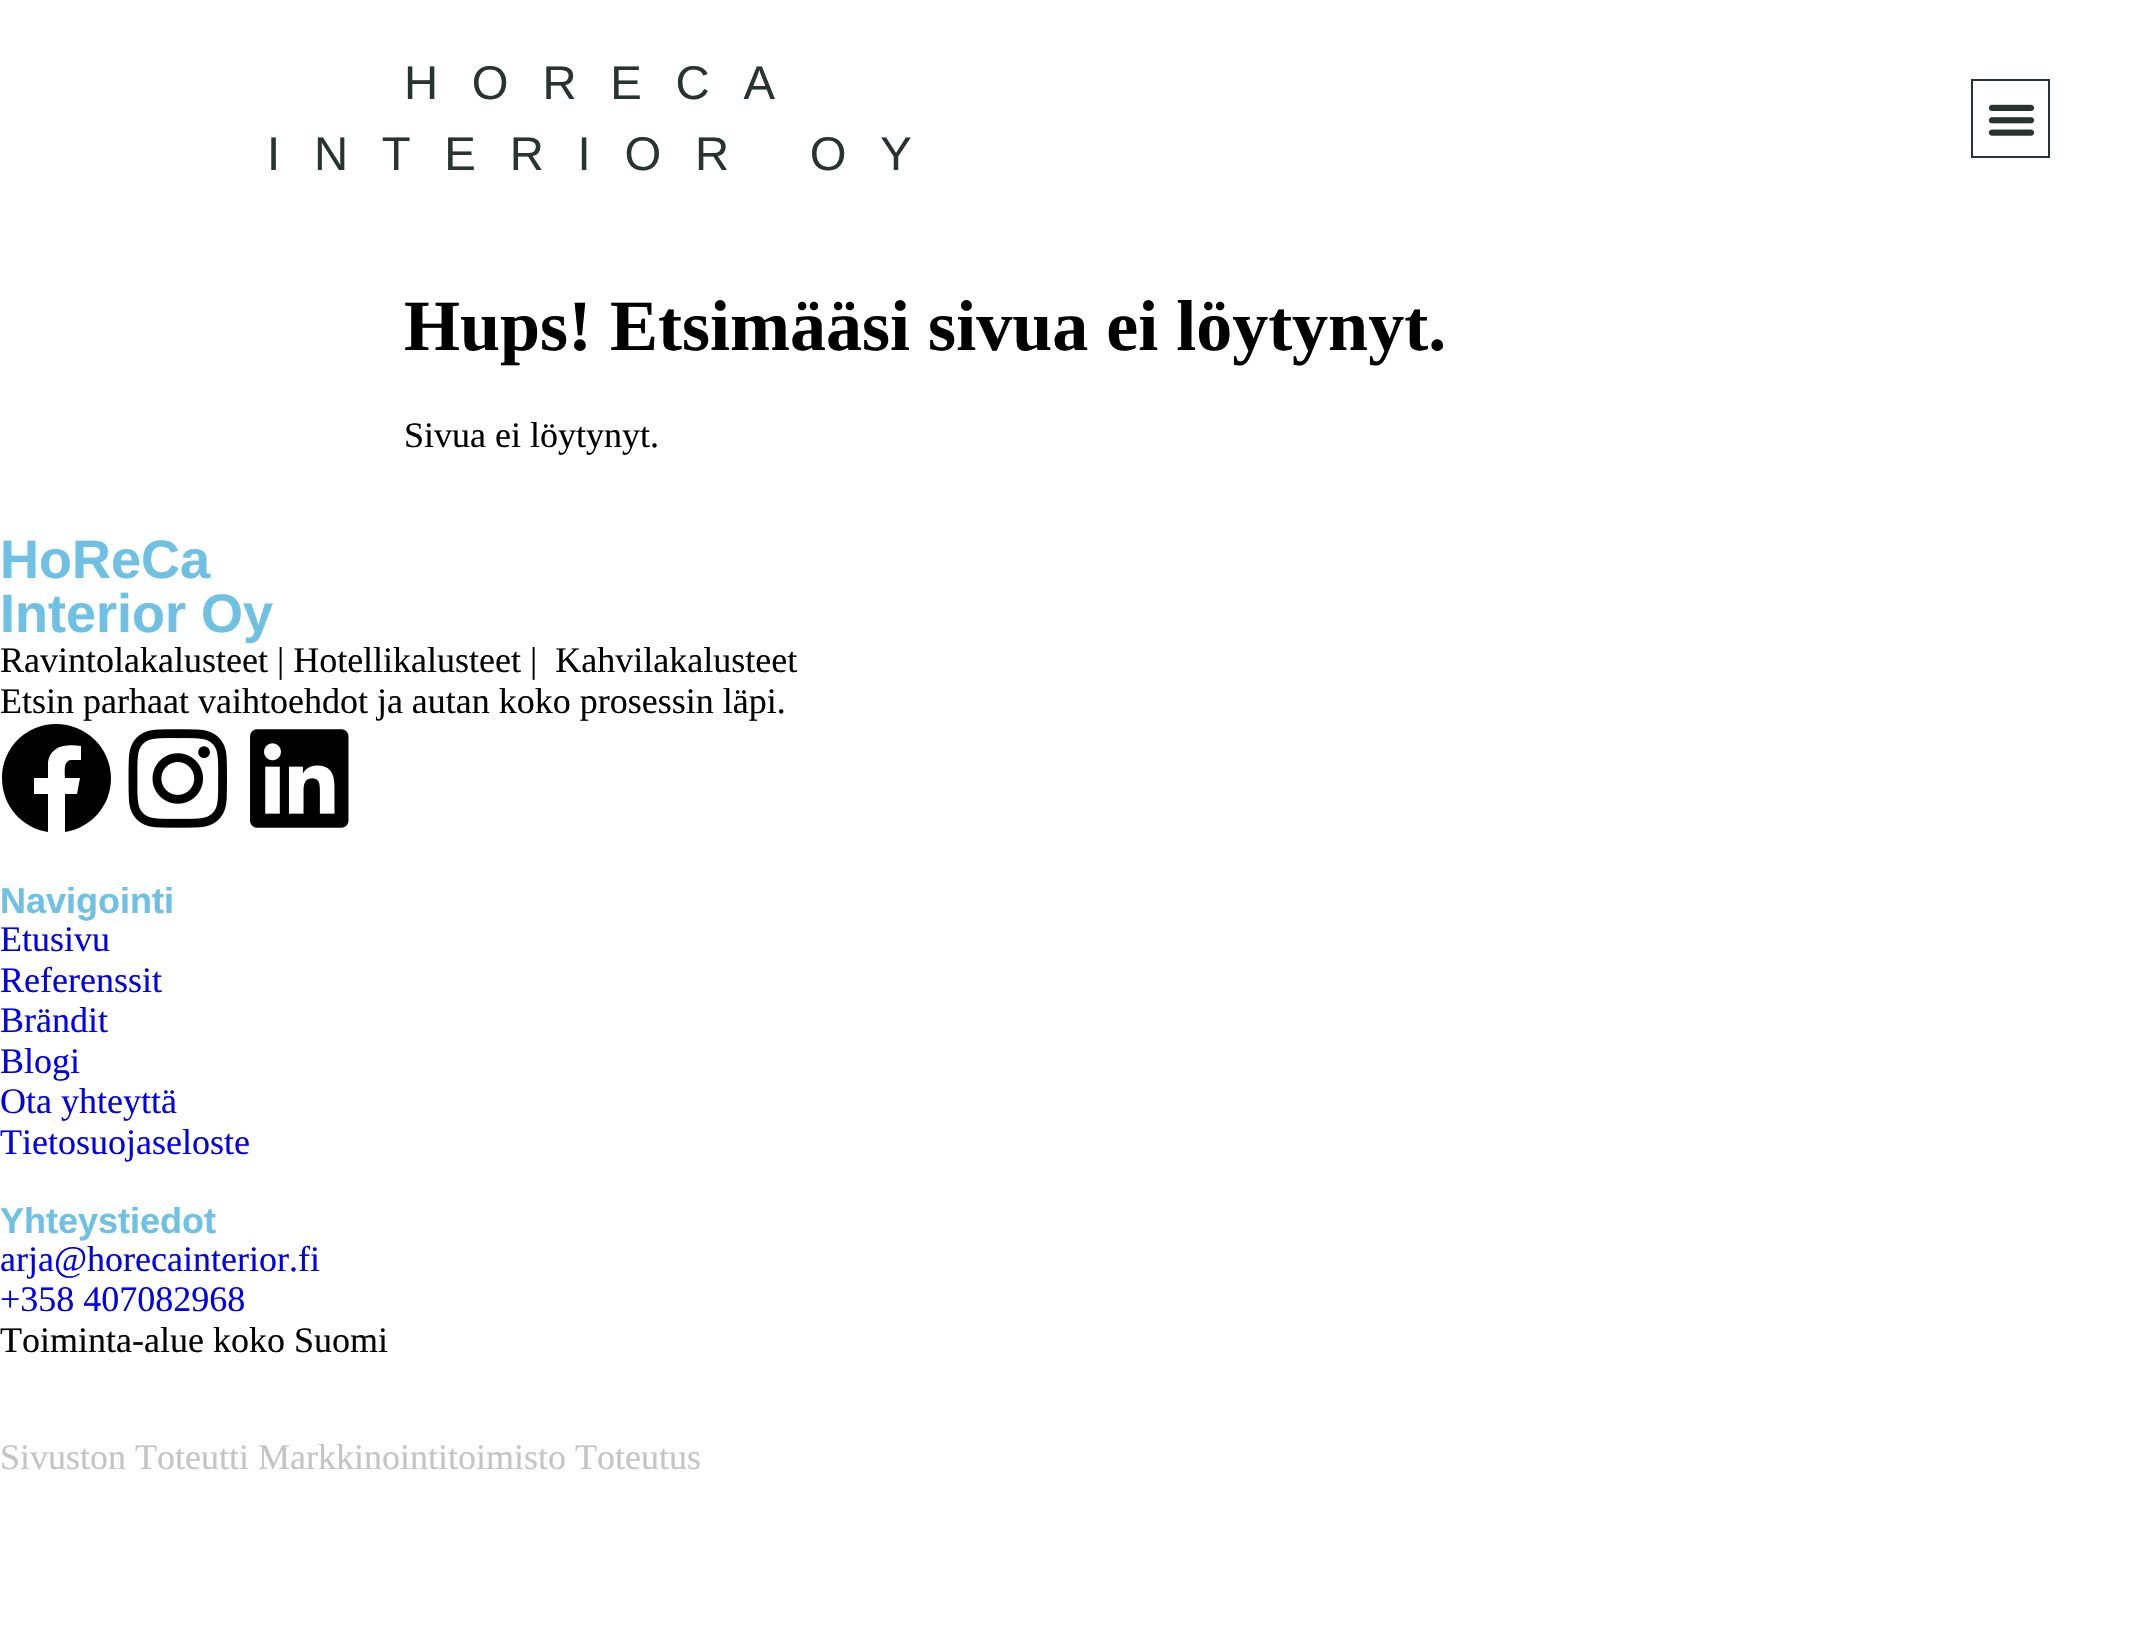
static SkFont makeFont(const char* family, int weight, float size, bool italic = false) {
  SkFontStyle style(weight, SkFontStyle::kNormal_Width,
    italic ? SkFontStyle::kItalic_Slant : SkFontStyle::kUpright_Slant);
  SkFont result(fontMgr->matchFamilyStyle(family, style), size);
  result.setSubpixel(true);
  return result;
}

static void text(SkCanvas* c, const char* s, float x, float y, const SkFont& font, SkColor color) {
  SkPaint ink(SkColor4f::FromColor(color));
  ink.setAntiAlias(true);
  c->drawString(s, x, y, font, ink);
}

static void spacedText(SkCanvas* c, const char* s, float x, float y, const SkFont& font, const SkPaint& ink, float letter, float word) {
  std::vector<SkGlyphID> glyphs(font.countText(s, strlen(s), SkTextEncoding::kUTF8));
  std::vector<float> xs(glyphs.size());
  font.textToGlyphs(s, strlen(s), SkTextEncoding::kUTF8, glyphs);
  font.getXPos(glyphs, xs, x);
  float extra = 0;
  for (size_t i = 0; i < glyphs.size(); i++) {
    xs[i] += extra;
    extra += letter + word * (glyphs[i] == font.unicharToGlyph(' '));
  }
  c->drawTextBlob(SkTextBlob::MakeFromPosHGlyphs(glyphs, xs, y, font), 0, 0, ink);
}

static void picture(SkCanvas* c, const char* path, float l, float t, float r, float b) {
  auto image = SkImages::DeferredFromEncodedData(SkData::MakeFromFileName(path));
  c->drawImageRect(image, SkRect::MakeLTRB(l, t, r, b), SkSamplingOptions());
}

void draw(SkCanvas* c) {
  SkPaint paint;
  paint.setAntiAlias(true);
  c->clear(0xffffffff);
  SkFont face1 = makeFont("Liberation Sans", 400, 47.25f);
  paint.setColor(0xff29332f);
  spacedText(c, "HORECA", 404, 99, face1, paint, 33.75f, 0);
  spacedText(c, "INTERIOR OY", 267, 170, face1, paint, 33.75f, 0);
  paint.setStyle(SkPaint::kStroke_Style);
  paint.setStrokeWidth(2);
  c->drawRect(SkRect::MakeLTRB(1972, 80, 2049, 157), paint);
  picture(c, "img_01.png", 1988, 104, 2035, 136);
  SkFont face2 = makeFont("Liberation Serif", 700, 72);
  text(c, "Hups! Etsimääsi sivua ei löytynyt.", 404, 350, face2, 0xff000000);
  SkFont face3 = makeFont("Liberation Serif", 400, 36);
  text(c, "Sivua ei löytynyt.", 404, 447, face3, 0xff000000);
  SkFont face4 = makeFont("Liberation Sans", 700, 54);
  text(c, "HoReCa", 0, 578, face4, 0xff6ec1e4);
  text(c, "Interior Oy", 0, 632, face4, 0xff6ec1e4);
  text(c, "Ravintolakalusteet | Hotellikalusteet |  Kahvilakalusteet", 0, 672, face3, 0xff000000);
  text(c, "Etsin parhaat vaihtoehdot ja autan koko prosessin läpi.", 0, 713, face3, 0xff000000);
  paint.setStyle(SkPaint::kFill_Style);
  paint.setColor(0xff000000);
  c->drawPath(SkPathBuilder().moveTo(111, 778).cubicTo(111, 748, 86, 724, 56, 724).cubicTo(26, 724, 2, 748, 2, 778).cubicTo(2, 806, 22, 828, 48, 832).lineTo(48, 794).lineTo(34, 794).lineTo(34, 778).lineTo(48, 778).lineTo(48, 762).cubicTo(51, 745, 67, 744, 81, 746).lineTo(81, 760).lineTo(71, 760).cubicTo(63, 761, 65, 772, 65, 778).lineTo(80, 778).lineTo(77, 794).lineTo(65, 794).lineTo(65, 832).cubicTo(91, 828, 111, 806, 111, 778).close().detach(), paint);
  picture(c, "img_02.png", 128, 729, 227, 828);
  picture(c, "img_03.png", 250, 729, 349, 828);
  SkFont face5 = makeFont("Liberation Sans", 700, 36);
  text(c, "Navigointi", 0, 913, face5, 0xff6ec1e4);
  text(c, "Etusivu", 0, 951, face3, 0xff0000ee);
  text(c, "Referenssit", 0, 992, face3, 0xff0000ee);
  text(c, "Brändit", 0, 1032, face3, 0xff0000ee);
  text(c, "Blogi", 0, 1073, face3, 0xff0000ee);
  text(c, "Ota yhteyttä", 0, 1113, face3, 0xff0000ee);
  text(c, "Tietosuojaseloste", 0, 1154, face3, 0xff0000ee);
  text(c, "Yhteystiedot", 0, 1233, face5, 0xff6ec1e4);
  text(c, "arja@horecainterior.fi", 0, 1271, face3, 0xff0000ee);
  text(c, "+358 407082968", 0, 1311, face3, 0xff0000ee);
  text(c, "Toiminta-alue koko Suomi", 0, 1352, face3, 0xff000000);
  text(c, "Sivuston Toteutti Markkinointitoimisto Toteutus", 0, 1469, face3, 0xffc4c4c4);
}
